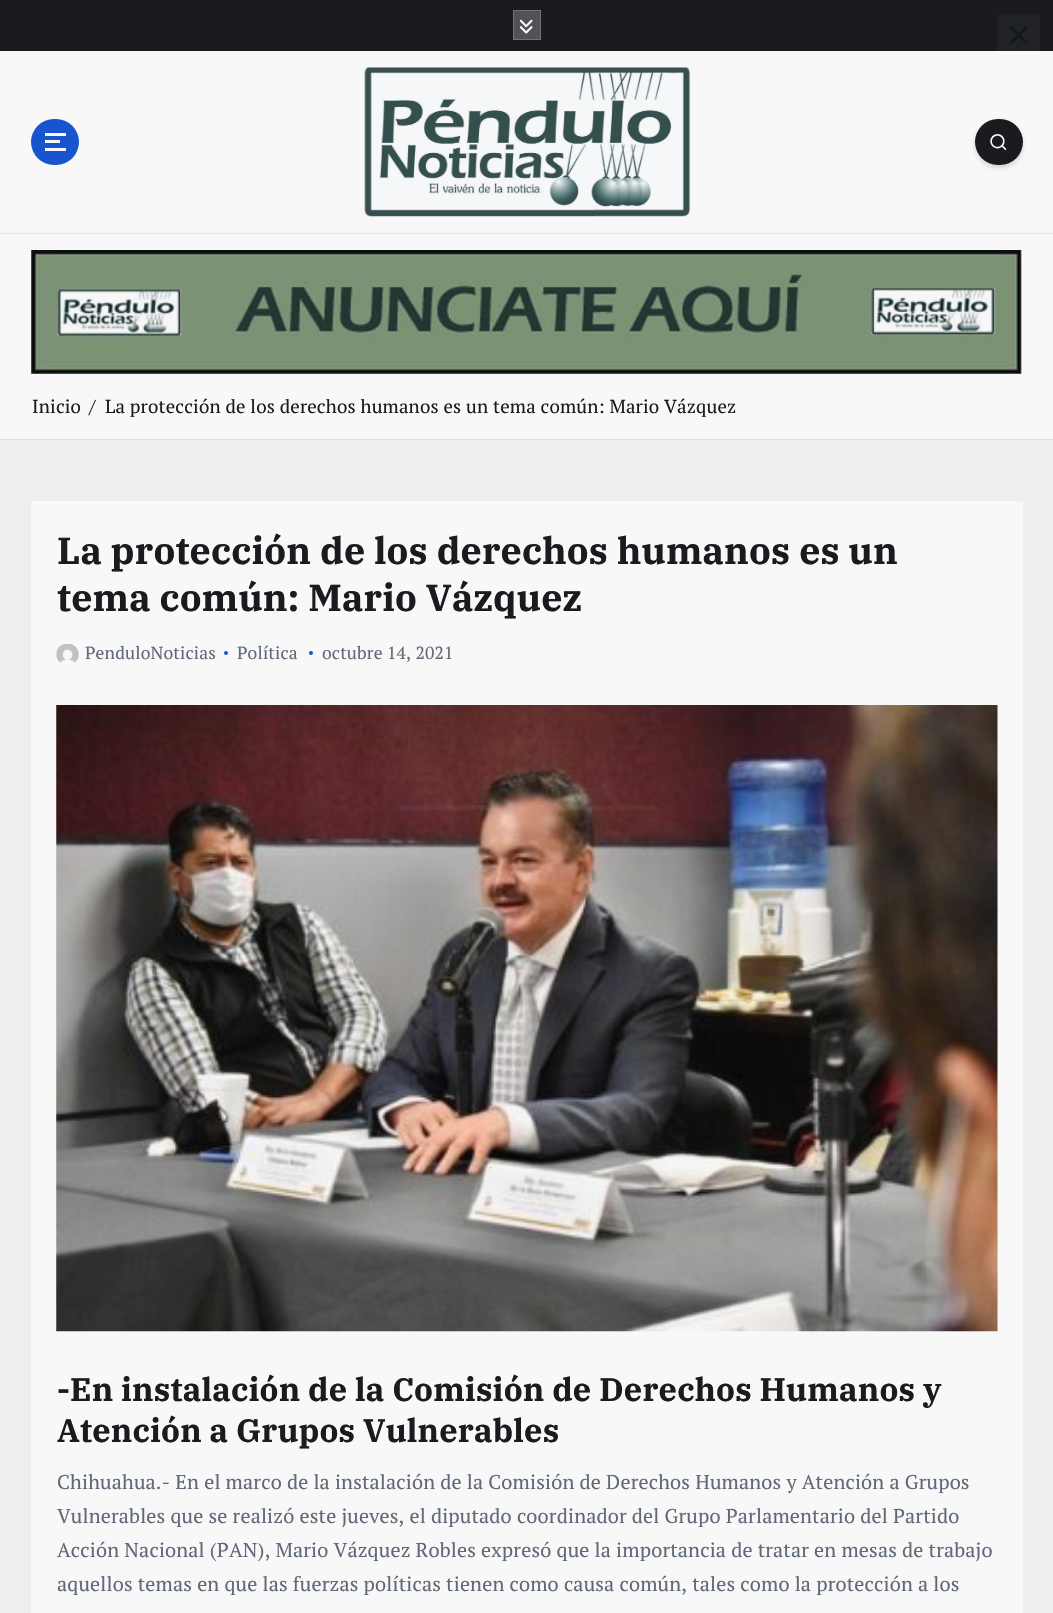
static SkFont makeFont(const char* family, int weight, float size, bool italic = false) {
  SkFontStyle style(weight, SkFontStyle::kNormal_Width,
    italic ? SkFontStyle::kItalic_Slant : SkFontStyle::kUpright_Slant);
  SkFont result(fontMgr->matchFamilyStyle(family, style), size);
  result.setSubpixel(true);
  return result;
}

static void spacedText(SkCanvas* c, const char* s, float x, float y, const SkFont& font, const SkPaint& ink, float letter, float word) {
  std::vector<SkGlyphID> glyphs(font.countText(s, strlen(s), SkTextEncoding::kUTF8));
  std::vector<float> xs(glyphs.size());
  font.textToGlyphs(s, strlen(s), SkTextEncoding::kUTF8, glyphs);
  font.getXPos(glyphs, xs, x);
  float extra = 0;
  for (size_t i = 0; i < glyphs.size(); i++) {
    xs[i] += extra;
    extra += letter + word * (glyphs[i] == font.unicharToGlyph(' '));
  }
  c->drawTextBlob(SkTextBlob::MakeFromPosHGlyphs(glyphs, xs, y, font), 0, 0, ink);
}

static void box(SkCanvas* c, float l, float t, float r, float b, SkColor color) {
  SkPaint ink(SkColor4f::FromColor(color));
  ink.setAntiAlias(true);
  c->drawRect(SkRect::MakeLTRB(l, t, r, b), ink);
}

static void roundBox(SkCanvas* c, float l, float t, float r, float b, float radius, SkColor color) {
  SkPaint ink(SkColor4f::FromColor(color));
  ink.setAntiAlias(true);
  c->drawRoundRect(SkRect::MakeLTRB(l, t, r, b), radius, radius, ink);
}

static void picture(SkCanvas* c, const char* path, float l, float t, float r, float b) {
  auto image = SkImages::DeferredFromEncodedData(SkData::MakeFromFileName(path));
  c->drawImageRect(image, SkRect::MakeLTRB(l, t, r, b), SkSamplingOptions());
}

void draw(SkCanvas* c) {
  SkPaint paint;
  paint.setAntiAlias(true);
  c->clear(0xffeeeeee);
  box(c, 0, 0, 1053, 51, 0xff191b1f);
  box(c, 998, 14, 1040, 51, 0xff202226);
  paint.setColor(0xff505255);
  c->drawRect(SkRect::MakeLTRB(513.5f, 10.5f, 540.5f, 39.5f), paint);
  paint.setStyle(SkPaint::kStroke_Style);
  paint.setStrokeWidth(1);
  paint.setColor(0xff727376);
  c->drawRect(SkRect::MakeLTRB(513.5f, 10.5f, 540.5f, 39.5f), paint);
  picture(c, "img_01.png", 519, 19, 533, 34);
  paint.setStyle(SkPaint::kFill_Style);
  paint.setColor(0xffe7e7e8);
  c->drawPath(SkPathBuilder().moveTo(0, 232).lineTo(0, 234).lineTo(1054, 234).lineTo(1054, 53).lineTo(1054, 232).close().detach(), paint);
  box(c, 0, 51, 1053, 233, 0xfff8f8f8);
  roundBox(c, 31, 119, 79, 165, 23, 0xff1854ce);
  box(c, 45, 133, 66, 136, 0xfff8f8f8);
  box(c, 45, 140, 60, 143, 0xfff8f8f8);
  box(c, 45, 148, 66, 151, 0xfff8f8f8);
  picture(c, "img_02.png", 364, 67, 691, 217);
  paint.setColor(0x26080808);
  paint.setMaskFilter(SkMaskFilter::MakeBlur(kNormal_SkBlurStyle, 2.5f));
  c->drawRoundRect(SkRect::MakeLTRB(975, 121, 1023, 168), 23.5f, 23.5f, paint);
  paint.setMaskFilter(nullptr);
  roundBox(c, 975, 119, 1023, 165, 23, 0xff191b1f);
  picture(c, "img_03.png", 990, 134, 1007, 151);
  box(c, 0, 234, 1053, 439, 0xfff8f8f8);
  picture(c, "img_04.png", 31, 250, 1022, 374);
  paint.setColor(0xff12161e);
  c->drawPath(SkPathBuilder().moveTo(1009.5f, 42.5f).lineTo(1026, 26).lineTo(1028, 28).lineTo(1011.5f, 44.5f).close().detach(), paint);
  c->drawPath(SkPathBuilder().moveTo(1026, 44.5f).lineTo(1009.5f, 28).lineTo(1011.5f, 26).lineTo(1028, 42.5f).close().detach(), paint);
  box(c, 31, 501, 1023, 1613, 0xfff8f8f8);
  picture(c, "img_06.png", 56, 705, 998, 1332);
  box(c, 400, 805, 654, 810, 0x08ffffff);
  box(c, 400, 805, 484, 810, 0x081151d3);
  paint.setColor(0xffdfdfdf);
  c->drawPath(SkPathBuilder().moveTo(0, 439).lineTo(0, 440).lineTo(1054, 440).lineTo(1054, 375).lineTo(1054, 439).close().detach(), paint);
  SkFont face1 = makeFont("PT Serif", 400, 18.75f);
  paint.setColor(0xff191b1f);
  spacedText(c, "Inicio", 32, 413, face1, paint, 0.17f, 0);
  spacedText(c, "/", 89, 413, face1, paint, 0.17f, 0);
  spacedText(c, "La protección de los derechos humanos es un tema común: Mario Vázquez", 105, 413, face1, paint, 0.17f, 0);
  SkFont face2 = makeFont("IBM Plex Serif", 700, 37.5f);
  spacedText(c, "La protección de los derechos humanos es un", 57, 564, face2, paint, 0.17f, 0);
  spacedText(c, "tema común: Mario Vázquez", 57, 611, face2, paint, 0.17f, 0);
  picture(c, "img_05.png", 56, 644, 79, 663);
  SkFont face3 = makeFont("PT Serif", 400, 17.5f);
  paint.setColor(0xff5f6978);
  spacedText(c, "PenduloNoticias", 85, 659, face3, paint, 0.17f, 0);
  paint.setColor(0xff1854ce);
  c->drawCircle(226, 653, 2, paint);
  paint.setColor(0xff5f6978);
  spacedText(c, "Política", 237, 659, face3, paint, 0.17f, 0);
  paint.setColor(0xff1854ce);
  c->drawCircle(311, 653, 2, paint);
  paint.setColor(0xff5f6978);
  spacedText(c, "octubre 14, 2021", 322, 659, face3, paint, 0.17f, 0);
  SkFont face4 = makeFont("IBM Plex Serif", 700, 32.5f);
  paint.setColor(0xff191b1f);
  spacedText(c, "-En instalación de la Comisión de Derechos Humanos y", 57, 1401, face4, paint, 0.17f, 0);
  spacedText(c, "Atención a Grupos Vulnerables", 57, 1442, face4, paint, 0.17f, 0);
  SkFont face5 = makeFont("PT Serif", 400, 20);
  paint.setColor(0xff5f6978);
  spacedText(c, "Chihuahua.- En el marco de la instalación de la Comisión de Derechos Humanos y Atención a Grupos", 57, 1489, face5, paint, 0.17f, 0);
  spacedText(c, "Vulnerables que se realizó este jueves, el diputado coordinador del Grupo Parlamentario del Partido", 57, 1523, face5, paint, 0.17f, 0);
  spacedText(c, "Acción Nacional (PAN), Mario Vázquez Robles expresó que la importancia de tratar en mesas de trabajo", 57, 1557, face5, paint, 0.17f, 0);
  spacedText(c, "aquellos temas en que las fuerzas políticas tienen como causa común, tales como la protección a los", 57, 1591, face5, paint, 0.17f, 0);
}
